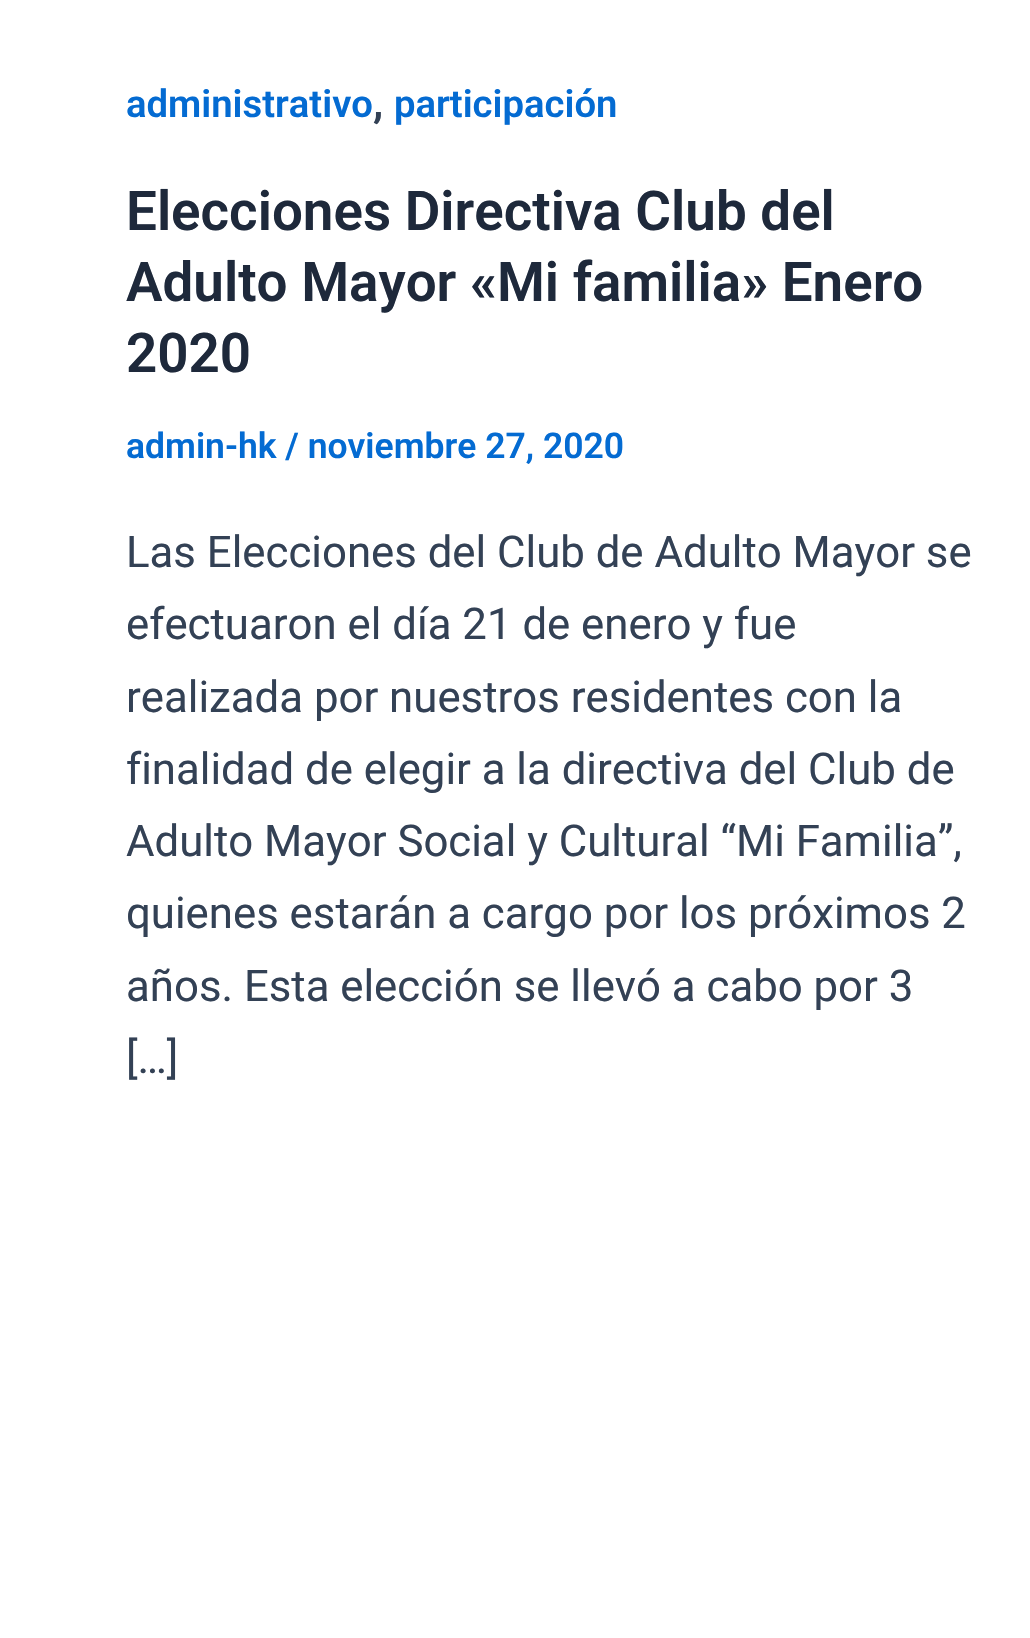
static SkFont makeFont(const char* family, int weight, float size, bool italic = false) {
  SkFontStyle style(weight, SkFontStyle::kNormal_Width,
    italic ? SkFontStyle::kItalic_Slant : SkFontStyle::kUpright_Slant);
  SkFont result(fontMgr->matchFamilyStyle(family, style), size);
  result.setSubpixel(true);
  return result;
}

static void text(SkCanvas* c, const char* s, float x, float y, const SkFont& font, SkColor color) {
  SkPaint ink(SkColor4f::FromColor(color));
  ink.setAntiAlias(true);
  c->drawString(s, x, y, font, ink);
}

void draw(SkCanvas* c) {
  SkPaint paint;
  paint.setAntiAlias(true);
  c->clear(0xffffffff);
  SkFont face1 = makeFont("Roboto", 600, 38.25f);
  text(c, "administrativo", 126, 117, face1, 0xff046bd2);
  SkFont face2 = makeFont("Roboto", 600, 43.75f);
  text(c, ",", 373, 117, face2, 0xff334155);
  text(c, "participación", 394, 117, face1, 0xff046bd2);
  SkFont face3 = makeFont("Roboto", 600, 54.75f);
  text(c, "Elecciones Directiva Club del", 126, 230, face3, 0xff1e293b);
  text(c, "Adulto Mayor «Mi familia» Enero", 126, 301, face3, 0xff1e293b);
  text(c, "2020", 126, 372, face3, 0xff1e293b);
  SkFont face4 = makeFont("Roboto", 600, 35.5f);
  text(c, "admin-hk / noviembre 27, 2020", 126, 458, face4, 0xff046bd2);
  SkFont face5 = makeFont("Roboto", 400, 43.75f);
  text(c, "Las Elecciones del Club de Adulto Mayor se", 126, 567, face5, 0xff334155);
  text(c, "efectuaron el día 21 de enero y fue", 126, 639, face5, 0xff334155);
  text(c, "realizada por nuestros residentes con la", 126, 712, face5, 0xff334155);
  text(c, "finalidad de elegir a la directiva del Club de", 126, 784, face5, 0xff334155);
  text(c, "Adulto Mayor Social y Cultural “Mi Familia”,", 126, 856, face5, 0xff334155);
  text(c, "quienes estarán a cargo por los próximos 2", 126, 928, face5, 0xff334155);
  text(c, "años. Esta elección se llevó a cabo por 3", 126, 1001, face5, 0xff334155);
  text(c, "[…]", 126, 1073, face5, 0xff334155);
}
